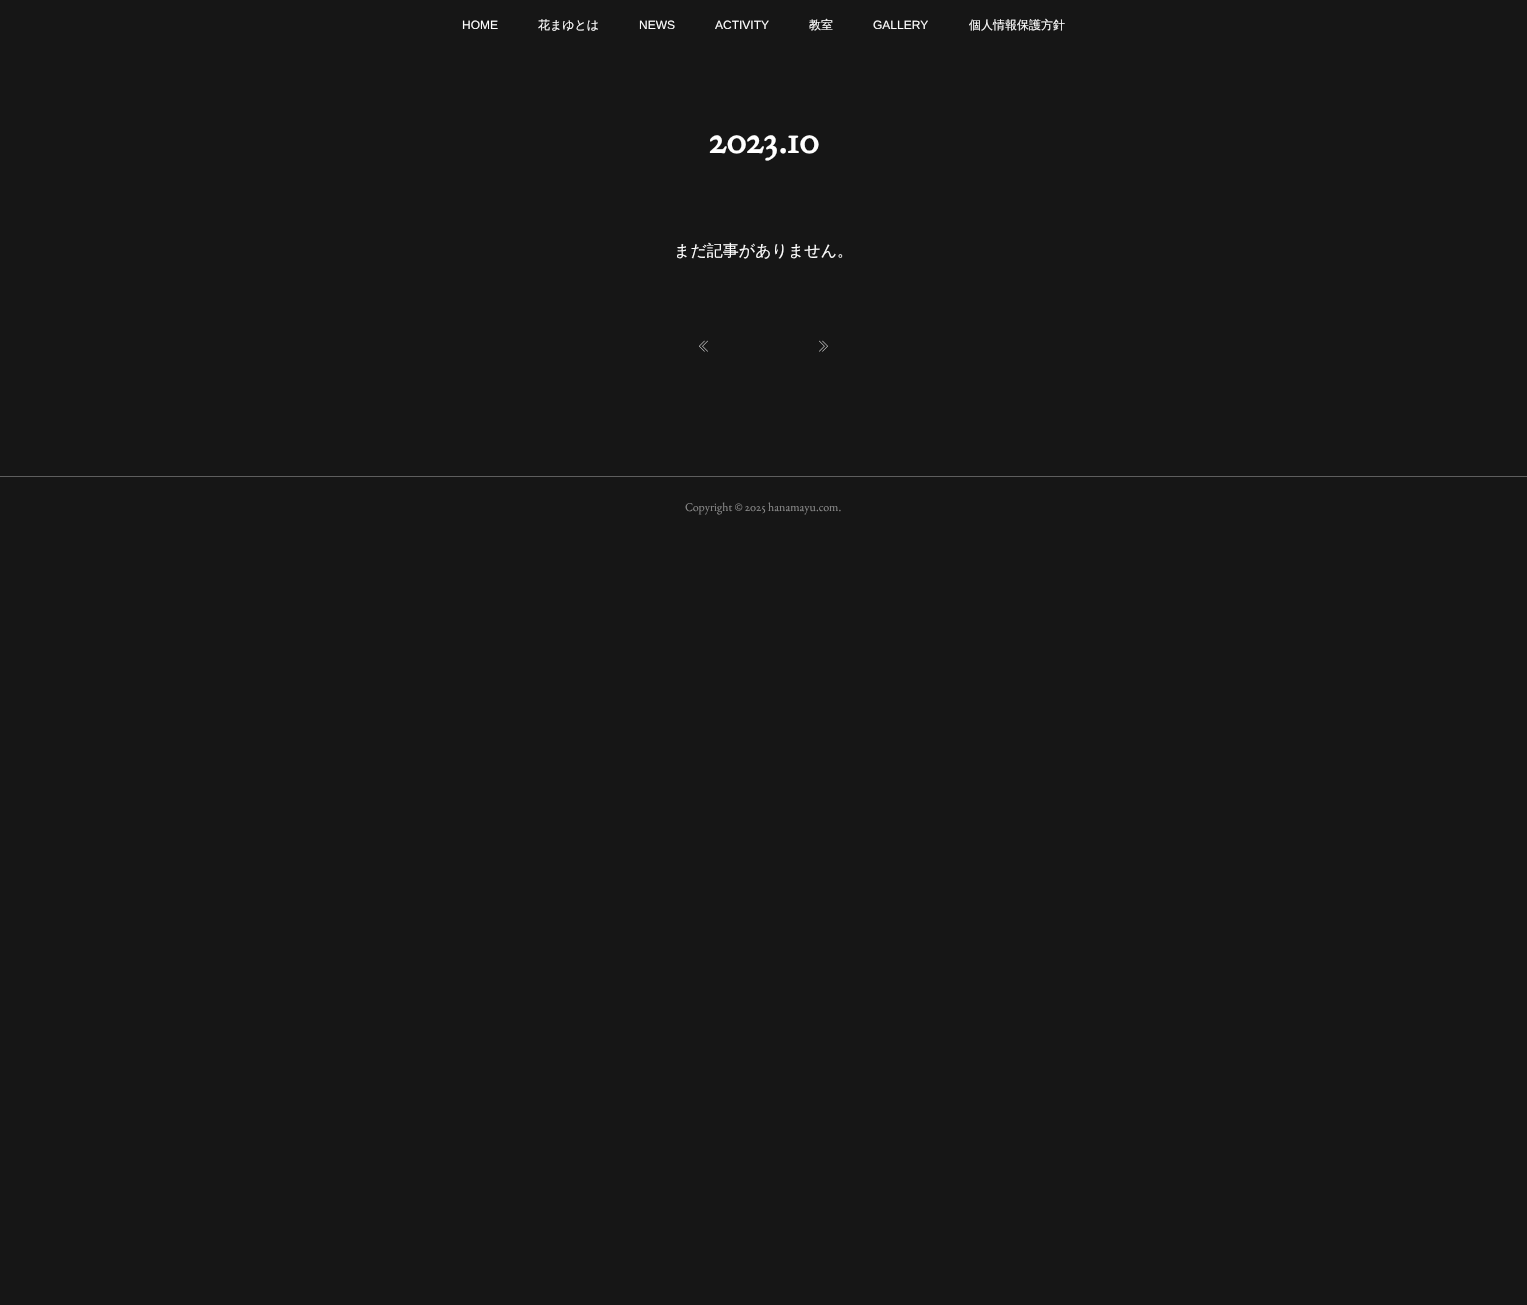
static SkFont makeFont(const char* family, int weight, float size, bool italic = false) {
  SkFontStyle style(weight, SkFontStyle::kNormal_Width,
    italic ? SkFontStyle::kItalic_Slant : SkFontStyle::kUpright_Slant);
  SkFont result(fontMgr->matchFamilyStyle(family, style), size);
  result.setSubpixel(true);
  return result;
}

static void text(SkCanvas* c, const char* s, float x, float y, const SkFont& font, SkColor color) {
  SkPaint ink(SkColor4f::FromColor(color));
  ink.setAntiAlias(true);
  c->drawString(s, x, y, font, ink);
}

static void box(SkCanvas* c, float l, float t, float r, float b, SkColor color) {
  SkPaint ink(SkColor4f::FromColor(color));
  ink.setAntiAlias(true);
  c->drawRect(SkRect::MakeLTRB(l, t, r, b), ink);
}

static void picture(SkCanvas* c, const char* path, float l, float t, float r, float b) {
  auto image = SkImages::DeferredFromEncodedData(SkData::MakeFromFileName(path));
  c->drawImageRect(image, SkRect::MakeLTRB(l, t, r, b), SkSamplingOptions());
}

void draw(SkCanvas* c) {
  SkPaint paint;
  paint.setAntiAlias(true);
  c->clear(0xff161616);
  SkFont face1 = makeFont("Liberation Sans", 400, 12);
  text(c, "HOME", 462, 29, face1, 0xffffffff);
  SkFont face2 = makeFont("WenQuanYi Zen Hei", 500, 12);
  text(c, "花まゆとは", 538, 29, face2, 0xffffffff);
  text(c, "NEWS", 639, 29, face1, 0xffffffff);
  text(c, "ACTIVITY", 715, 29, face1, 0xffffffff);
  text(c, "教室", 809, 29, face2, 0xffffffff);
  text(c, "GALLERY", 873, 29, face1, 0xffffffff);
  text(c, "個人情報保護方針", 969, 29, face2, 0xffffffff);
  SkFont face3 = makeFont("EB Garamond", 700, 40);
  text(c, "2023.10", 709, 153, face3, 0xffffffff);
  SkFont face4 = makeFont("WenQuanYi Zen Hei", 500, 16);
  text(c, "まだ記事がありません。", 674, 256, face4, 0xffffffff);
  picture(c, "img_01.png", 699, 340, 708, 352);
  picture(c, "img_02.png", 819, 340, 828, 352);
  box(c, 0, 476, 1527, 477, 0xff5e5e5e);
  SkFont face5 = makeFont("EB Garamond", 400, 12);
  text(c, "Copyright © 2025 hanamayu.com.", 685, 511, face5, 0xff8b8b8b);
}
